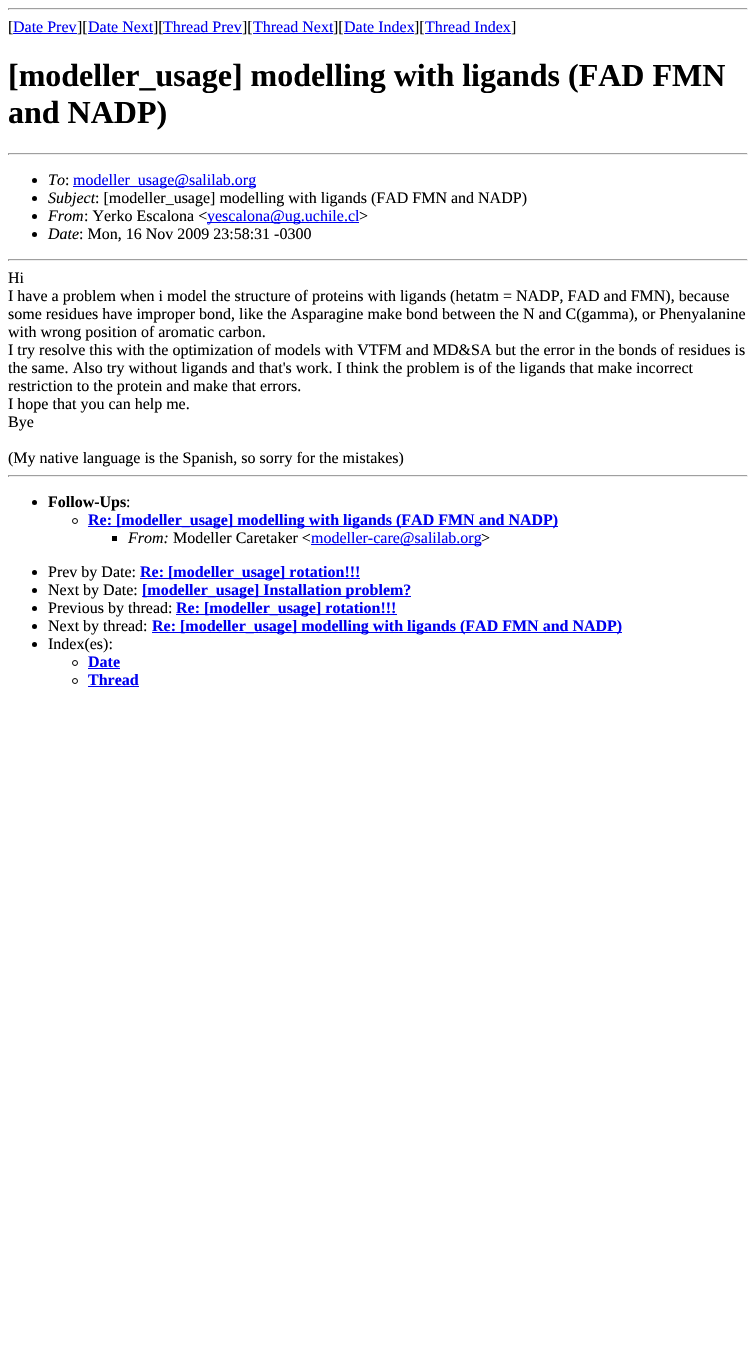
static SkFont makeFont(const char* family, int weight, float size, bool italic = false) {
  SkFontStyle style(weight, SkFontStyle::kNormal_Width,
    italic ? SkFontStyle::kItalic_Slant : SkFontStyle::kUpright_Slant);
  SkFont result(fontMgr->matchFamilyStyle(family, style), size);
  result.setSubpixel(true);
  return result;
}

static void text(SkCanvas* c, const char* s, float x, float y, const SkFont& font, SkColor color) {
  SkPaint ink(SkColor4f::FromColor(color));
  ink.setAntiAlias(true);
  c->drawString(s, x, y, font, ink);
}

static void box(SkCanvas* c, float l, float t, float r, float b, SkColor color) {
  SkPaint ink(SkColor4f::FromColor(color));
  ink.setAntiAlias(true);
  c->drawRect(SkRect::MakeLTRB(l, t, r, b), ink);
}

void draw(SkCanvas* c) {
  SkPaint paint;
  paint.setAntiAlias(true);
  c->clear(0xffffffff);
  box(c, 8, 8, 748, 9, 0xff9f9f9f);
  box(c, 747, 8, 748, 10, 0xffeeeeee);
  box(c, 8, 9, 748, 10, 0xffeeeeee);
  box(c, 8, 8, 9, 10, 0xff9f9f9f);
  SkFont face1 = makeFont("Liberation Serif", 400, 16);
  text(c, "[", 8, 32, face1, 0xff000000);
  text(c, "Date Prev", 13, 32, face1, 0xff0000ee);
  box(c, 13, 33, 77, 34, 0xff0000ee);
  text(c, "][", 77, 32, face1, 0xff000000);
  text(c, "Date Next", 88, 32, face1, 0xff0000ee);
  box(c, 88, 33, 153, 34, 0xff0000ee);
  text(c, "][", 153, 32, face1, 0xff000000);
  text(c, "Thread Prev", 163, 32, face1, 0xff0000ee);
  box(c, 163, 33, 242, 34, 0xff0000ee);
  text(c, "][", 242, 32, face1, 0xff000000);
  text(c, "Thread Next", 253, 32, face1, 0xff0000ee);
  box(c, 253, 33, 333, 34, 0xff0000ee);
  text(c, "][", 333, 32, face1, 0xff000000);
  text(c, "Date Index", 344, 32, face1, 0xff0000ee);
  box(c, 344, 33, 414, 34, 0xff0000ee);
  text(c, "][", 414, 32, face1, 0xff000000);
  text(c, "Thread Index", 425, 32, face1, 0xff0000ee);
  box(c, 425, 33, 511, 34, 0xff0000ee);
  text(c, "]", 511, 32, face1, 0xff000000);
  SkFont face2 = makeFont("Liberation Serif", 700, 32);
  text(c, "[modeller_usage] modelling with ligands (FAD FMN", 8, 86, face2, 0xff000000);
  text(c, "and NADP)", 8, 123, face2, 0xff000000);
  box(c, 8, 153, 748, 154, 0xff9f9f9f);
  box(c, 747, 153, 748, 155, 0xffeeeeee);
  box(c, 8, 154, 748, 155, 0xffeeeeee);
  box(c, 8, 153, 9, 155, 0xff9f9f9f);
  paint.setColor(0xff000000);
  c->drawCircle(34.5f, 180.5f, 2.5f, paint);
  SkFont face3 = makeFont("Liberation Serif", 400, 16, true);
  text(c, "To", 48, 185, face3, 0xff000000);
  text(c, ":", 65, 185, face1, 0xff000000);
  box(c, 73, 186, 256, 187, 0xff0000ee);
  text(c, "modeller_usage@salilab.org", 73, 185, face1, 0xff0000ee);
  c->drawCircle(34.5f, 198.5f, 2.5f, paint);
  text(c, "Subject", 48, 203, face3, 0xff000000);
  text(c, ": [modeller_usage] modelling with ligands (FAD FMN and NADP)", 95, 203, face1, 0xff000000);
  c->drawCircle(34.5f, 216.5f, 2.5f, paint);
  text(c, "From", 48, 221, face3, 0xff000000);
  text(c, ": Yerko Escalona <", 84, 221, face1, 0xff000000);
  box(c, 207, 222, 359, 223, 0xff0000ee);
  text(c, "yescalona@ug.uchile.cl", 207, 221, face1, 0xff0000ee);
  text(c, ">", 359, 221, face1, 0xff000000);
  c->drawCircle(34.5f, 234.5f, 2.5f, paint);
  text(c, "Date", 48, 239, face3, 0xff000000);
  text(c, ": Mon, 16 Nov 2009 23:58:31 -0300", 79, 239, face1, 0xff000000);
  box(c, 8, 259, 748, 260, 0xff9f9f9f);
  box(c, 747, 259, 748, 261, 0xffeeeeee);
  box(c, 8, 260, 748, 261, 0xffeeeeee);
  box(c, 8, 259, 9, 261, 0xff9f9f9f);
  text(c, "Hi", 8, 283, face1, 0xff000000);
  text(c, "I have a problem when i model the structure of proteins with ligands (hetatm = NADP, FAD and FMN), because", 8, 301, face1, 0xff000000);
  text(c, "some residues have improper bond, like the Asparagine make bond between the N and C(gamma), or Phenyalanine", 8, 319, face1, 0xff000000);
  text(c, "with wrong position of aromatic carbon.", 8, 337, face1, 0xff000000);
  text(c, "I try resolve this with the optimization of models with VTFM and MD&SA but the error in the bonds of residues is", 8, 355, face1, 0xff000000);
  text(c, "the same. Also try without ligands and that's work. I think the problem is of the ligands that make incorrect", 8, 373, face1, 0xff000000);
  text(c, "restriction to the protein and make that errors.", 8, 391, face1, 0xff000000);
  text(c, "I hope that you can help me.", 8, 409, face1, 0xff000000);
  text(c, "Bye", 8, 427, face1, 0xff000000);
  text(c, "(My native language is the Spanish, so sorry for the mistakes)", 8, 463, face1, 0xff000000);
  box(c, 8, 475, 748, 476, 0xff9f9f9f);
  box(c, 747, 475, 748, 477, 0xffeeeeee);
  box(c, 8, 476, 748, 477, 0xffeeeeee);
  box(c, 8, 475, 9, 477, 0xff9f9f9f);
  c->drawCircle(34.5f, 502.5f, 2.5f, paint);
  SkFont face4 = makeFont("Liberation Serif", 700, 16);
  text(c, "Follow-Ups", 48, 507, face4, 0xff000000);
  text(c, ":", 126, 507, face1, 0xff000000);
  paint.setStyle(SkPaint::kStroke_Style);
  paint.setStrokeWidth(1);
  c->drawCircle(75, 521, 2.5f, paint);
  box(c, 88, 526, 558, 527, 0xff0000ee);
  text(c, "Re: [modeller_usage] modelling with ligands (FAD FMN and NADP)", 88, 525, face4, 0xff0000ee);
  box(c, 112, 536, 117, 541, 0xff000000);
  text(c, "From:", 128, 543, face3, 0xff000000);
  text(c, "Modeller Caretaker <", 173, 543, face1, 0xff000000);
  box(c, 311, 544, 481, 545, 0xff0000ee);
  text(c, "modeller-care@salilab.org", 311, 543, face1, 0xff0000ee);
  text(c, ">", 481, 543, face1, 0xff000000);
  paint.setStyle(SkPaint::kFill_Style);
  c->drawCircle(34.5f, 572.5f, 2.5f, paint);
  text(c, "Prev by Date:", 48, 577, face1, 0xff000000);
  box(c, 140, 578, 360, 579, 0xff0000ee);
  text(c, "Re: [modeller_usage] rotation!!!", 140, 577, face4, 0xff0000ee);
  c->drawCircle(34.5f, 590.5f, 2.5f, paint);
  text(c, "Next by Date:", 48, 595, face1, 0xff000000);
  box(c, 142, 596, 411, 597, 0xff0000ee);
  text(c, "[modeller_usage] Installation problem?", 142, 595, face4, 0xff0000ee);
  c->drawCircle(34.5f, 608.5f, 2.5f, paint);
  text(c, "Previous by thread:", 48, 613, face1, 0xff000000);
  box(c, 176, 614, 397, 615, 0xff0000ee);
  text(c, "Re: [modeller_usage] rotation!!!", 176, 613, face4, 0xff0000ee);
  c->drawCircle(34.5f, 626.5f, 2.5f, paint);
  text(c, "Next by thread:", 48, 631, face1, 0xff000000);
  box(c, 152, 632, 622, 633, 0xff0000ee);
  text(c, "Re: [modeller_usage] modelling with ligands (FAD FMN and NADP)", 152, 631, face4, 0xff0000ee);
  c->drawCircle(34.5f, 644.5f, 2.5f, paint);
  text(c, "Index(es):", 48, 649, face1, 0xff000000);
  paint.setStyle(SkPaint::kStroke_Style);
  c->drawCircle(75, 663, 2.5f, paint);
  text(c, "Date", 88, 667, face4, 0xff0000ee);
  box(c, 88, 668, 120, 669, 0xff0000ee);
  c->drawCircle(75, 681, 2.5f, paint);
  text(c, "Thread", 88, 685, face4, 0xff0000ee);
  box(c, 88, 686, 139, 687, 0xff0000ee);
}
